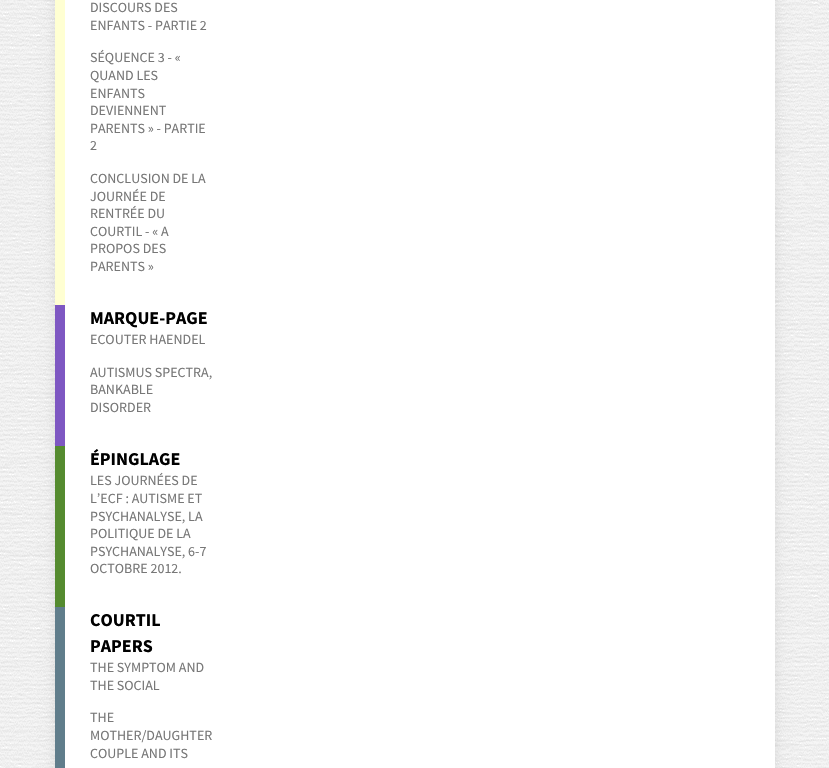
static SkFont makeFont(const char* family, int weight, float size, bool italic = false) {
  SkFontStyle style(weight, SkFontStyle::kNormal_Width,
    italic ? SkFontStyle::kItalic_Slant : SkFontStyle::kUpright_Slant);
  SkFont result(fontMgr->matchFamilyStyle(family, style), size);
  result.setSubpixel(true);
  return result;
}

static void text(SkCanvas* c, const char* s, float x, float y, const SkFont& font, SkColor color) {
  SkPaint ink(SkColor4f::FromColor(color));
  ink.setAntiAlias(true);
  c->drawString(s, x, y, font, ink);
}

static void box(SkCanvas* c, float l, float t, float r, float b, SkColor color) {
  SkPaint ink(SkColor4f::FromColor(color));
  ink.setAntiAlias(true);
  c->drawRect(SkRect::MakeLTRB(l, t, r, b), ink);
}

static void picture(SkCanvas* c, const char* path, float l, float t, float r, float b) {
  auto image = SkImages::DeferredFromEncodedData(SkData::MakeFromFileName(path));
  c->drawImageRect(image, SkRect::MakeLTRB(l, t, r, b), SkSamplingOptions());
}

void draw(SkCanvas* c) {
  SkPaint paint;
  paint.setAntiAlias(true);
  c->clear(0xffffffff);
  picture(c, "img_01.png", 0, 0, 829, 768);
  paint.setColor(0x1a000000);
  paint.setMaskFilter(SkMaskFilter::MakeBlur(kNormal_SkBlurStyle, 6));
  c->drawRect(SkRect::MakeLTRB(55, -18, 775, 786), paint);
  paint.setMaskFilter(nullptr);
  box(c, 65, 0, 775, 768, 0xffffffff);
  box(c, 55, 0, 65, 305, 0xffffffd2);
  SkFont face1 = makeFont("Source Sans Pro", 400, 14);
  text(c, "DISCOURS DES", 90, 12, face1, 0xff777777);
  text(c, "ENFANTS - PARTIE 2", 90, 30, face1, 0xff777777);
  text(c, "SÉQUENCE 3 - «", 90, 62, face1, 0xff777777);
  text(c, "QUAND LES", 90, 80, face1, 0xff777777);
  text(c, "ENFANTS", 90, 98, face1, 0xff777777);
  text(c, "DEVIENNENT", 90, 115, face1, 0xff777777);
  text(c, "PARENTS » - PARTIE", 90, 133, face1, 0xff777777);
  text(c, "2", 90, 150, face1, 0xff777777);
  text(c, "CONCLUSION DE LA", 90, 183, face1, 0xff777777);
  text(c, "JOURNÉE DE", 90, 201, face1, 0xff777777);
  text(c, "RENTRÉE DU", 90, 218, face1, 0xff777777);
  text(c, "COURTIL - « A", 90, 236, face1, 0xff777777);
  text(c, "PROPOS DES", 90, 253, face1, 0xff777777);
  text(c, "PARENTS »", 90, 271, face1, 0xff777777);
  box(c, 55, 305, 65, 446, 0xff7e57c2);
  SkFont face2 = makeFont("Source Sans Pro", 700, 18);
  text(c, "MARQUE-PAGE", 90, 324, face2, 0xff000000);
  text(c, "ECOUTER HAENDEL", 90, 344, face1, 0xff777777);
  text(c, "AUTISMUS SPECTRA,", 90, 377, face1, 0xff777777);
  text(c, "BANKABLE", 90, 394, face1, 0xff777777);
  text(c, "DISORDER", 90, 412, face1, 0xff777777);
  box(c, 55, 446, 65, 607, 0xff558b2f);
  text(c, "ÉPINGLAGE", 90, 465, face2, 0xff000000);
  text(c, "LES JOURNÉES DE", 90, 485, face1, 0xff777777);
  text(c, "L’ECF : AUTISME ET", 90, 503, face1, 0xff777777);
  text(c, "PSYCHANALYSE, LA", 90, 521, face1, 0xff777777);
  text(c, "POLITIQUE DE LA", 90, 538, face1, 0xff777777);
  text(c, "PSYCHANALYSE, 6-7", 90, 556, face1, 0xff777777);
  text(c, "OCTOBRE 2012.", 90, 573, face1, 0xff777777);
  box(c, 55, 607, 65, 768, 0xff607d8b);
  text(c, "COURTIL", 90, 626, face2, 0xff000000);
  text(c, "PAPERS", 90, 652, face2, 0xff000000);
  text(c, "THE SYMPTOM AND", 90, 672, face1, 0xff777777);
  text(c, "THE SOCIAL", 90, 690, face1, 0xff777777);
  text(c, "THE", 90, 722, face1, 0xff777777);
  text(c, "MOTHER/DAUGHTER", 90, 740, face1, 0xff777777);
  text(c, "COUPLE AND ITS", 90, 758, face1, 0xff777777);
}
